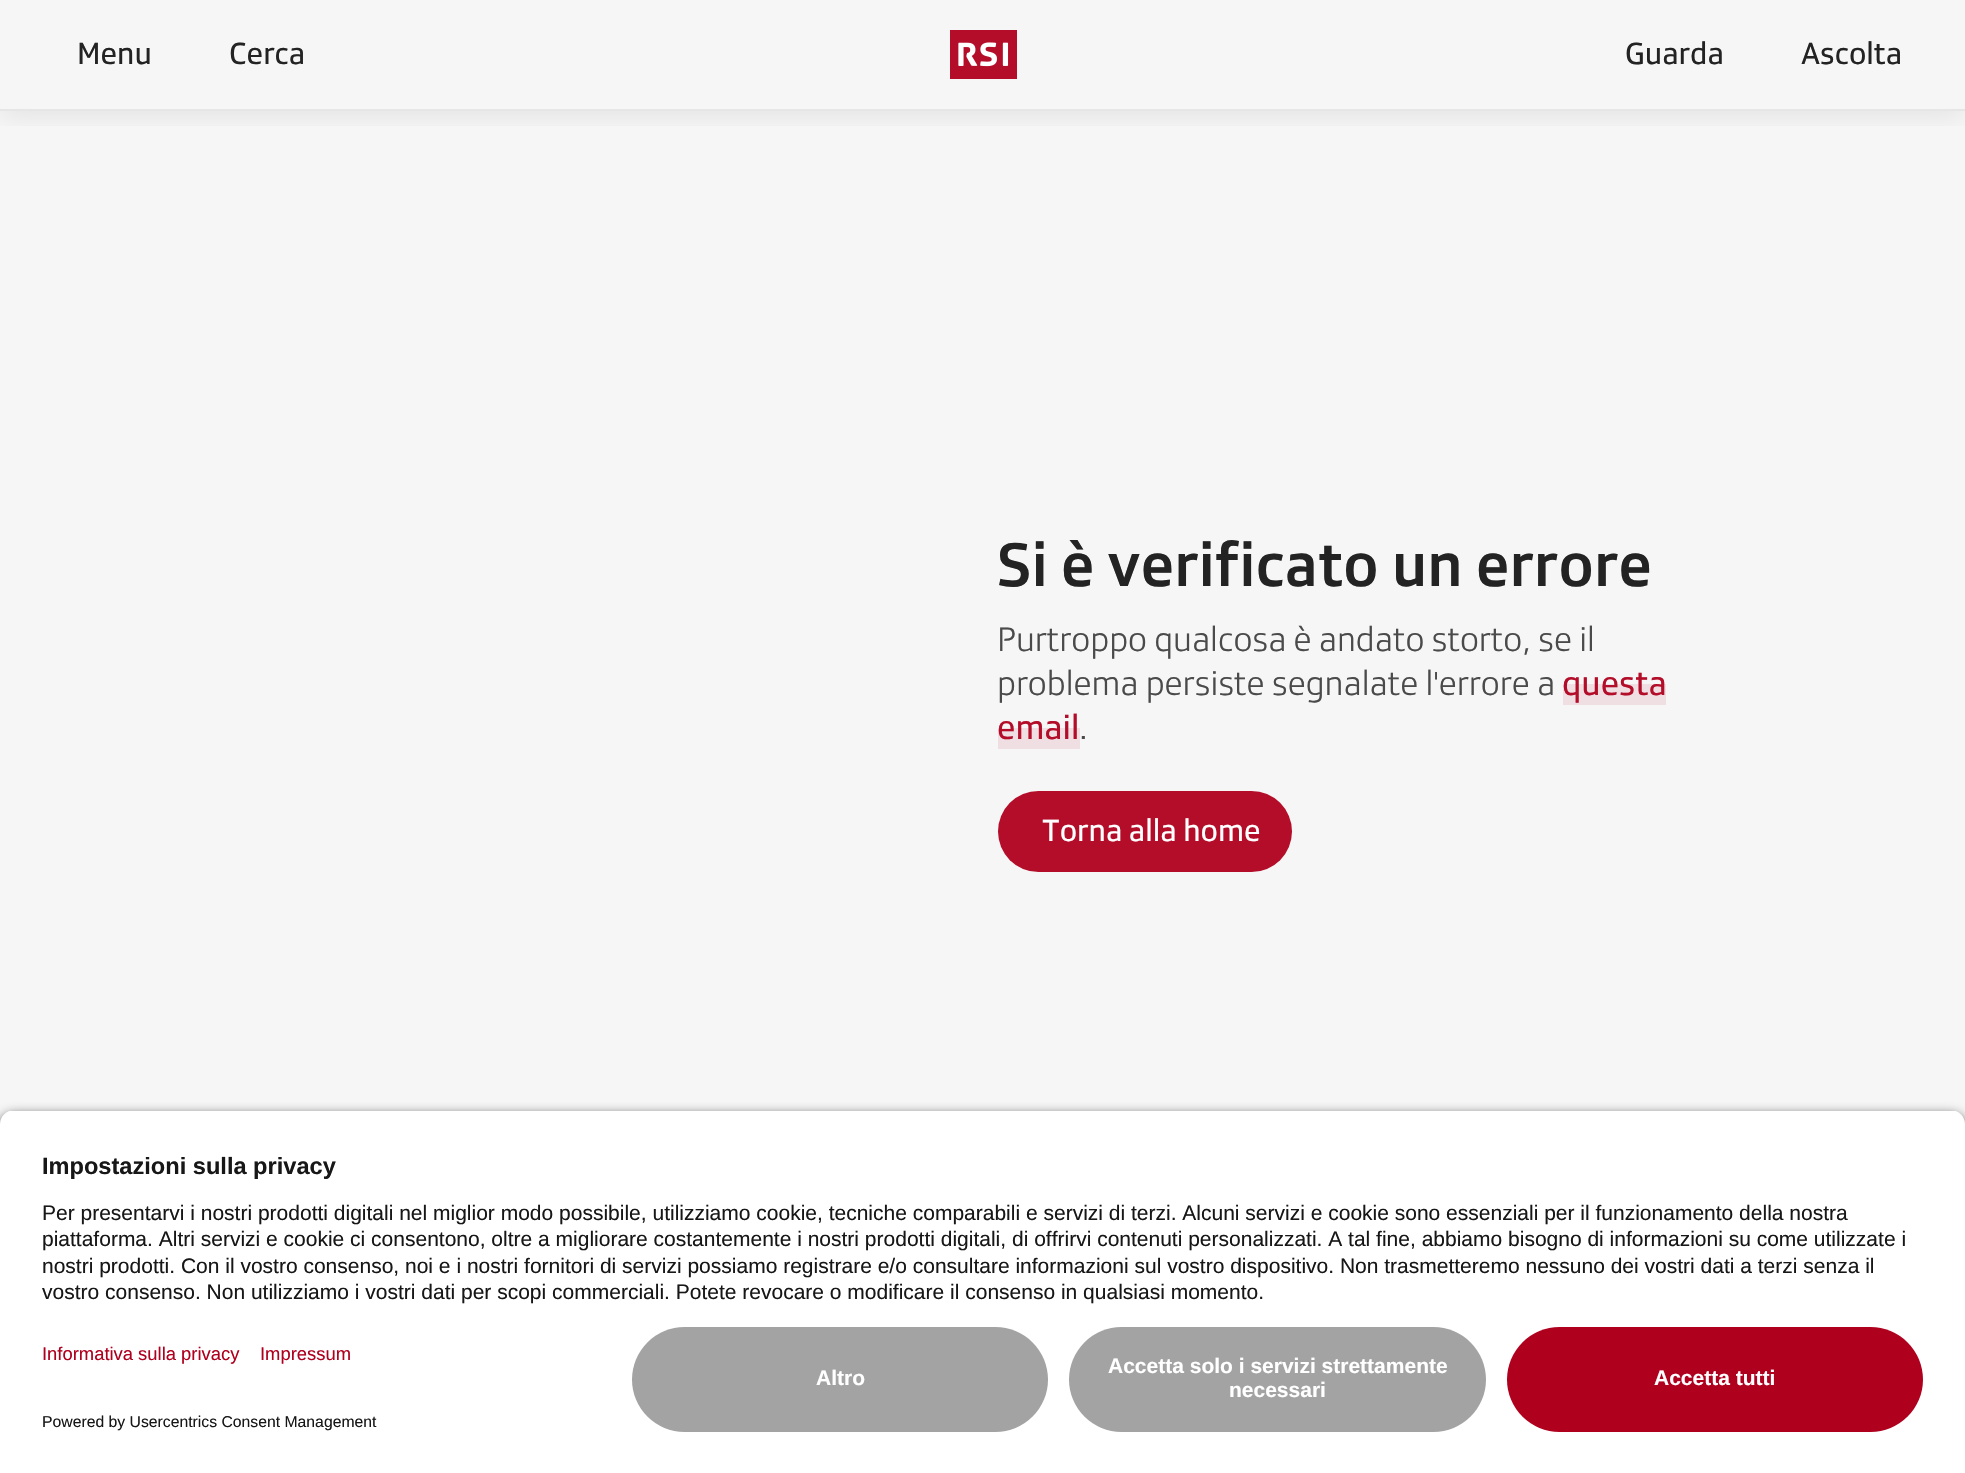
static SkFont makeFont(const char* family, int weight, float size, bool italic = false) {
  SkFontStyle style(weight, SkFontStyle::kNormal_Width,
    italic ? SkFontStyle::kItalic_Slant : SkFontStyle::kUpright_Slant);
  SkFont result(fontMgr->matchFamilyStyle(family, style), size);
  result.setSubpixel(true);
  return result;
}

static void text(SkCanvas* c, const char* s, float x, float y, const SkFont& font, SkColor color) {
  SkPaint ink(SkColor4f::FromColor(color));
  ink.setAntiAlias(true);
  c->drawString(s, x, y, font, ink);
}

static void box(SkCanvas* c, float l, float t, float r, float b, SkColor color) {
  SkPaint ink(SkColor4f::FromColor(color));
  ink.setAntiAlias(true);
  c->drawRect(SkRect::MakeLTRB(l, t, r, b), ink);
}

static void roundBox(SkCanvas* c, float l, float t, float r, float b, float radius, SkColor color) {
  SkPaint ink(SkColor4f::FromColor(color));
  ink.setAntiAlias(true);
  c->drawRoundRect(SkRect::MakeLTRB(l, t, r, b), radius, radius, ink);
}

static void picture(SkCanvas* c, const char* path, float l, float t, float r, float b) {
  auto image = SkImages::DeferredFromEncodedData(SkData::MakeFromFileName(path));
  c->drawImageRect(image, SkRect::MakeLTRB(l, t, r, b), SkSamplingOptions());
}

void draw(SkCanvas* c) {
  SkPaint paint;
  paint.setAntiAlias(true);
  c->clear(0xfff6f6f6);
  c->save();
  c->clipRect(SkRect::MakeLTRB(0, 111, 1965, 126));
  paint.setColor(0x140d0d0d);
  paint.setMaskFilter(SkMaskFilter::MakeBlur(kNormal_SkBlurStyle, 13));
  c->drawRect(SkRect::MakeLTRB(0, 7, 1965, 117), paint);
  paint.setMaskFilter(nullptr);
  c->restore();
  box(c, 0, 109, 1965, 111, 0xffe6e6e6);
  SkFont face1 = makeFont("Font", 400, 31.5f);
  text(c, "Menu", 77, 64, face1, 0xff232323);
  text(c, "Cerca", 229, 64, face1, 0xff232323);
  picture(c, "img_01.png", 950, 30, 1017, 79);
  text(c, "Guarda", 1625, 64, face1, 0xff232323);
  text(c, "Ascolta", 1801, 64, face1, 0xff232323);
  SkFont face2 = makeFont("Font", 500, 63);
  text(c, "Si è verificato un errore", 997, 586, face2, 0xff232323);
  SkFont face3 = makeFont("Font", 300, 35);
  text(c, "Purtroppo qualcosa è andato storto, se il", 997, 651, face3, 0xff4a4a4a);
  text(c, "problema persiste segnalate l'errore a", 997, 695, face3, 0xff4a4a4a);
  box(c, 1563, 684, 1666, 705, 0xffefdfe2);
  SkFont face4 = makeFont("Font", 400, 35);
  text(c, "questa", 1562, 695, face4, 0xffb30d29);
  box(c, 998, 728, 1080, 749, 0xffefdfe2);
  text(c, "email", 997, 739, face4, 0xffb30d29);
  text(c, ".", 1079, 739, face3, 0xff4a4a4a);
  roundBox(c, 998, 791, 1292, 872, 40.5f, 0xffb30d29);
  text(c, "Torna alla home", 1042, 841, face1, 0xffffffff);
  paint.setColor(0xcc000000);
  paint.setMaskFilter(SkMaskFilter::MakeBlur(kNormal_SkBlurStyle, 6));
  c->drawRoundRect(SkRect::MakeLTRB(0, 1115, 1965, 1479), 14, 14, paint);
  paint.setMaskFilter(nullptr);
  c->save();
  c->clipPath(SkPathBuilder().moveTo(14, 1110).lineTo(1951, 1110).cubicTo(1958.5f, 1110, 1965, 1116.5f, 1965, 1124).lineTo(1965, 1313).lineTo(0, 1313).lineTo(0, 1124).cubicTo(0, 1116.5f, 6.5f, 1110, 14, 1110).close().detach(), true);
  box(c, 0, 1111, 1965, 1313, 0xffffffff);
  c->restore();
  SkFont face5 = makeFont("Liberation Sans", 700, 23.6f);
  text(c, "Impostazioni sulla privacy", 42, 1174, face5, 0xff171717);
  SkFont face6 = makeFont("Liberation Sans", 400, 21);
  text(c, "Per presentarvi i nostri prodotti digitali nel miglior modo possibile, utilizziamo cookie, tecniche comparabili e servizi di terzi. Alcuni servizi e cookie sono essenziali per il funzionamento della nostra", 42, 1220, face6, 0xff171717);
  text(c, "piattaforma. Altri servizi e cookie ci consentono, oltre a migliorare costantemente i nostri prodotti digitali, di offrirvi contenuti personalizzati. A tal fine, abbiamo bisogno di informazioni su come utilizzate i", 42, 1246, face6, 0xff171717);
  text(c, "nostri prodotti. Con il vostro consenso, noi e i nostri fornitori di servizi possiamo registrare e/o consultare informazioni sul vostro dispositivo. Non trasmetteremo nessuno dei vostri dati a terzi senza il", 42, 1273, face6, 0xff171717);
  text(c, "vostro consenso. Non utilizziamo i vostri dati per scopi commerciali. Potete revocare o modificare il consenso in qualsiasi momento.", 42, 1299, face6, 0xff171717);
  box(c, 0, 1313, 1965, 1473, 0xffffffff);
  SkFont face7 = makeFont("Liberation Sans", 400, 18.4f);
  text(c, "Informativa sulla privacy", 42, 1360, face7, 0xffaf001e);
  text(c, "Impressum", 260, 1360, face7, 0xffaf001e);
  SkFont face8 = makeFont("Liberation Sans", 400, 15.75f);
  text(c, "Powered by Usercentrics Consent Management", 42, 1427, face8, 0xff171717);
  roundBox(c, 632, 1327, 1048, 1432, 52.5f, 0xffa3a3a3);
  SkFont face9 = makeFont("Liberation Sans", 700, 21);
  text(c, "Altro", 816, 1385, face9, 0xffffffff);
  roundBox(c, 1069, 1327, 1486, 1432, 52.5f, 0xffa3a3a3);
  text(c, "Accetta solo i servizi strettamente", 1108, 1373, face9, 0xffffffff);
  text(c, "necessari", 1229, 1397, face9, 0xffffffff);
  roundBox(c, 1507, 1327, 1923, 1432, 52.5f, 0xffaf001e);
  text(c, "Accetta tutti", 1654, 1385, face9, 0xffffffff);
}
